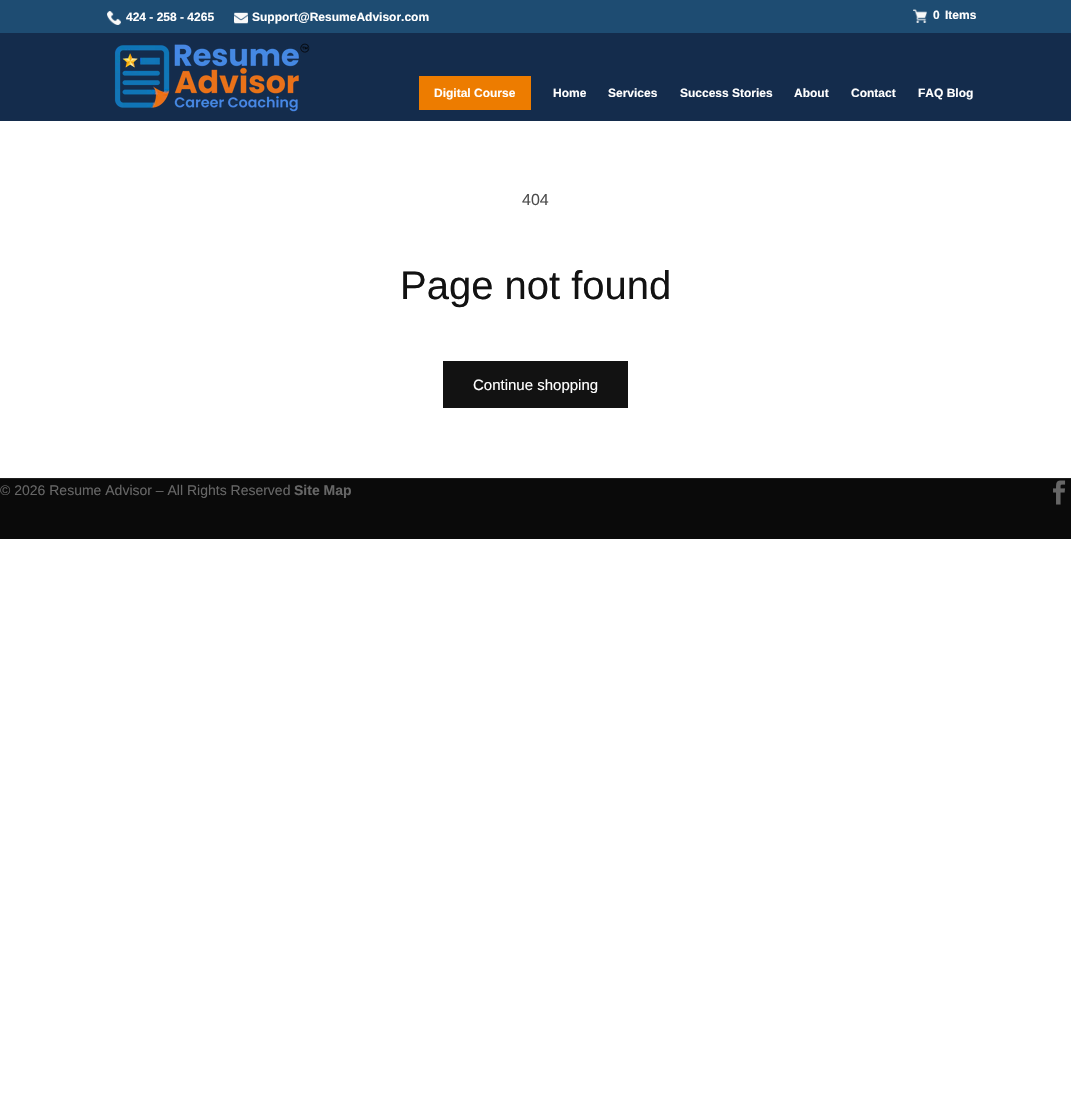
static SkFont makeFont(const char* family, int weight, float size, bool italic = false) {
  SkFontStyle style(weight, SkFontStyle::kNormal_Width,
    italic ? SkFontStyle::kItalic_Slant : SkFontStyle::kUpright_Slant);
  SkFont result(fontMgr->matchFamilyStyle(family, style), size);
  result.setSubpixel(true);
  return result;
}

static void text(SkCanvas* c, const char* s, float x, float y, const SkFont& font, SkColor color) {
  SkPaint ink(SkColor4f::FromColor(color));
  ink.setAntiAlias(true);
  c->drawString(s, x, y, font, ink);
}

static void box(SkCanvas* c, float l, float t, float r, float b, SkColor color) {
  SkPaint ink(SkColor4f::FromColor(color));
  ink.setAntiAlias(true);
  c->drawRect(SkRect::MakeLTRB(l, t, r, b), ink);
}

static void picture(SkCanvas* c, const char* path, float l, float t, float r, float b) {
  auto image = SkImages::DeferredFromEncodedData(SkData::MakeFromFileName(path));
  c->drawImageRect(image, SkRect::MakeLTRB(l, t, r, b), SkSamplingOptions());
}

void draw(SkCanvas* c) {
  SkPaint paint;
  paint.setAntiAlias(true);
  c->clear(0xffffffff);
  box(c, 0, 33, 1071, 121, 0xff142c4c);
  box(c, 0, 0, 1071, 33, 0xff1e4c72);
  picture(c, "img_01.png", 107, 11, 121, 25);
  SkFont face1 = makeFont("Liberation Sans", 700, 12);
  text(c, "424 - 258 - 4265", 126, 21, face1, 0xffffffff);
  picture(c, "img_02.png", 234, 12, 248, 24);
  text(c, "Support@ResumeAdvisor.com", 252, 21, face1, 0xffffffff);
  picture(c, "img_03.png", 913, 9, 927, 23);
  text(c, "0", 933, 19, face1, 0xffffffff);
  text(c, "Items", 945, 19, face1, 0xffffffff);
  picture(c, "img_04.png", 114, 43, 310, 112);
  box(c, 419, 76, 531, 110, 0xffed7c00);
  text(c, "Digital Course", 434, 97, face1, 0xffffffff);
  text(c, "Home", 553, 97, face1, 0xffffffff);
  text(c, "Services", 608, 97, face1, 0xffffffff);
  text(c, "Success Stories", 680, 97, face1, 0xffffffff);
  text(c, "About", 794, 97, face1, 0xffffffff);
  text(c, "Contact", 851, 97, face1, 0xffffffff);
  text(c, "FAQ Blog", 918, 97, face1, 0xffffffff);
  SkFont face2 = makeFont("Liberation Sans", 400, 16);
  text(c, "404", 522, 205, face2, 0xff4d4d4d);
  SkFont face3 = makeFont("Liberation Sans", 400, 40);
  text(c, "Page not found", 400, 299, face3, 0xff121212);
  box(c, 443, 361, 628, 408, 0xff121212);
  SkFont face4 = makeFont("Liberation Sans", 400, 15);
  text(c, "Continue shopping", 473, 390, face4, 0xffffffff);
  box(c, 0, 479, 1071, 539, 0xff0a0a0a);
  box(c, 0, 478, 1071, 479, 0xff1e1e1e);
  SkFont face5 = makeFont("Liberation Sans", 400, 14);
  text(c, "© 2026 Resume Advisor – All Rights Reserved", 0, 495, face5, 0xff666666);
  SkFont face6 = makeFont("Liberation Sans", 700, 14);
  text(c, "Site Map", 294, 495, face6, 0xff666666);
  picture(c, "img_05.png", 1053, 480, 1066, 505);
}
